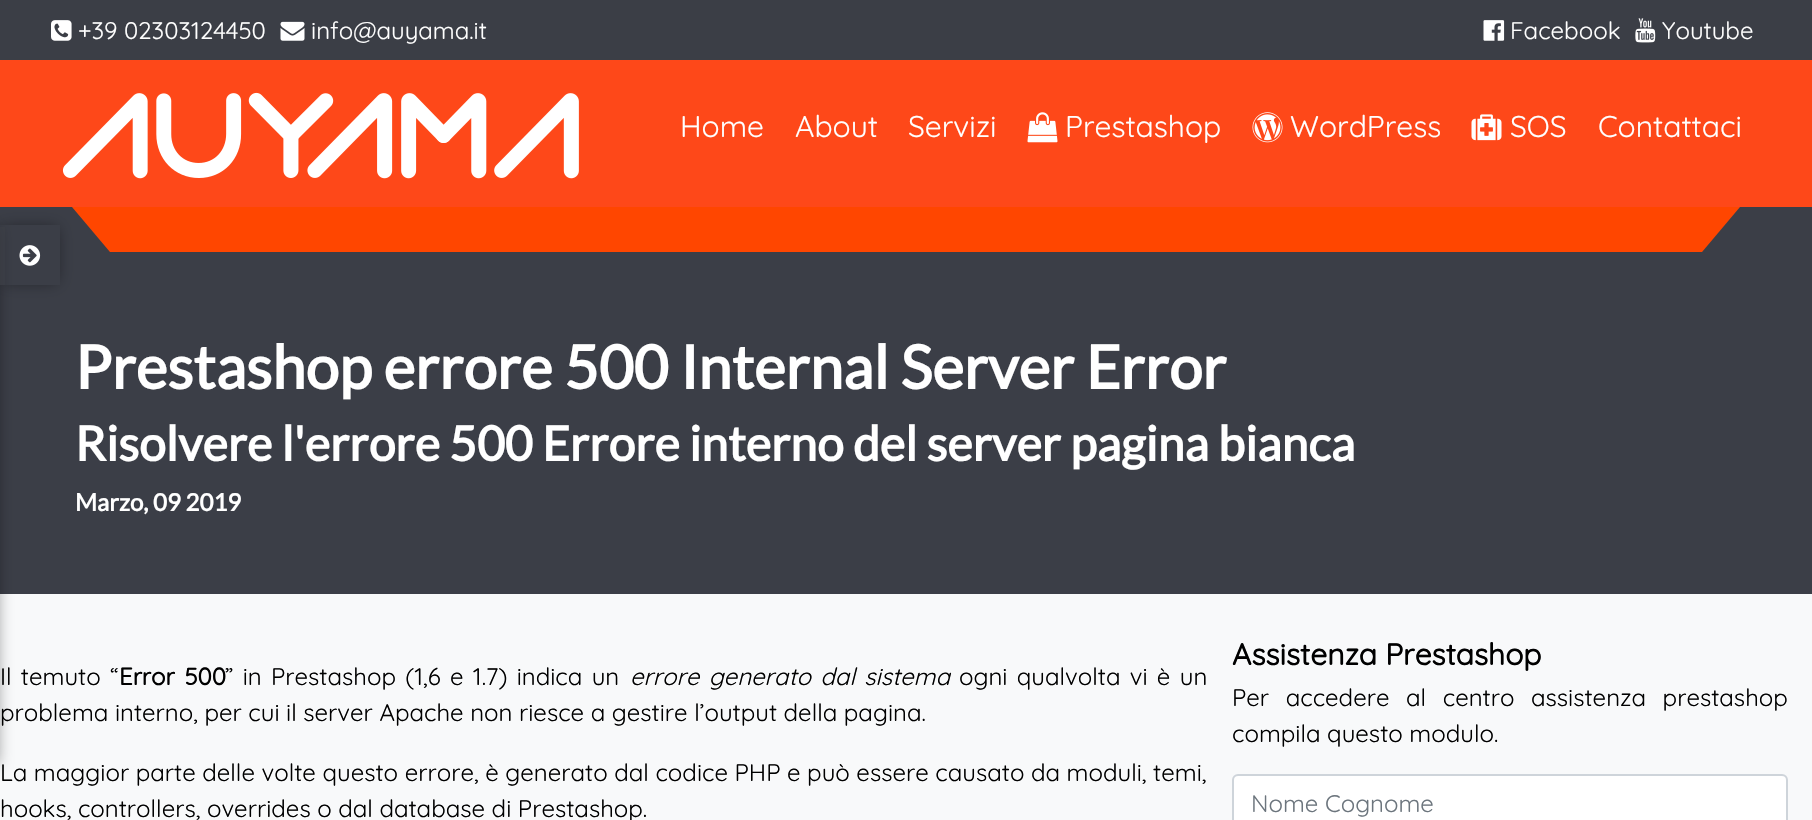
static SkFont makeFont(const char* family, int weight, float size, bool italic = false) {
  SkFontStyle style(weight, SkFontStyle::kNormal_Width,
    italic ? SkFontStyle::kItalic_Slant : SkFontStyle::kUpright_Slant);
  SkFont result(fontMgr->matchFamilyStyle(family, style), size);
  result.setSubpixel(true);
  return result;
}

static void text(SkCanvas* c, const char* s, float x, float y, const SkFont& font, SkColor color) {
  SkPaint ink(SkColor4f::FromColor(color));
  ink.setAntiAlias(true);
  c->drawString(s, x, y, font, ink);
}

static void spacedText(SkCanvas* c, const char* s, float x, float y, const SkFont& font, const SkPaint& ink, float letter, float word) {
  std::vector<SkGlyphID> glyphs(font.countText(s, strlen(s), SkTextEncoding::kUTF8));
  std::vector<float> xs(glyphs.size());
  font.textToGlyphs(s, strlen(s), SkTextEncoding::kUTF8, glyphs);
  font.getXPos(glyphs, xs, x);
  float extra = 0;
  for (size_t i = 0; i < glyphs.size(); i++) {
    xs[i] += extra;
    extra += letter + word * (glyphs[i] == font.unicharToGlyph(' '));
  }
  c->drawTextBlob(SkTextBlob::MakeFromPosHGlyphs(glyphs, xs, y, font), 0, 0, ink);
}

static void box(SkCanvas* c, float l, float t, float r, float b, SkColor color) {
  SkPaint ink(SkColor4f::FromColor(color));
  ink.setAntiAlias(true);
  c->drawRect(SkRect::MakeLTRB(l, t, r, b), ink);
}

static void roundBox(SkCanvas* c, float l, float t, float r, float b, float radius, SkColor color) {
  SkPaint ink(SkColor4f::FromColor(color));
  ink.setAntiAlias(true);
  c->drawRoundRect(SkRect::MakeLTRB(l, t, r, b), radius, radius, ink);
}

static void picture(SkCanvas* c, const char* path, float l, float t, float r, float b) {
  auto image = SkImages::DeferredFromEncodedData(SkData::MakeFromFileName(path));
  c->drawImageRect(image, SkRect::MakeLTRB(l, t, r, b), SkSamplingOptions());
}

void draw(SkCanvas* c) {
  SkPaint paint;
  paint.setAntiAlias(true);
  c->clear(0xfff8f9fa);
  box(c, 0, 0, 1812, 60, 0xff3b3e46);
  picture(c, "img_01.png", 51, 20, 72, 41);
  SkFont face1 = makeFont("Quicksand", 300, 24);
  text(c, "+39 02303124450", 78, 39, face1, 0xffffffff);
  picture(c, "img_02.png", 280, 21, 305, 41);
  text(c, "info@auyama.it", 311, 39, face1, 0xffffffff);
  picture(c, "img_03.png", 1483, 20, 1505, 41);
  text(c, "Facebook", 1510, 39, face1, 0xffffffff);
  picture(c, "img_04.png", 1635, 18, 1656, 43);
  text(c, "Youtube", 1662, 39, face1, 0xffffffff);
  box(c, 0, 60, 1812, 207, 0xfffe4819);
  picture(c, "img_05.png", 62, 92, 579, 179);
  SkFont face2 = makeFont("Quicksand", 300, 30);
  text(c, "Home", 680, 137, face2, 0xffffffff);
  text(c, "About", 795, 137, face2, 0xffffffff);
  text(c, "Servizi", 908, 137, face2, 0xffffffff);
  picture(c, "img_06.png", 1027, 112, 1058, 143);
  text(c, "Prestashop", 1065, 137, face2, 0xffffffff);
  picture(c, "img_07.png", 1252, 112, 1283, 143);
  text(c, "WordPress", 1290, 137, face2, 0xffffffff);
  picture(c, "img_08.png", 1471, 114, 1502, 141);
  text(c, "SOS", 1510, 137, face2, 0xffffffff);
  text(c, "Contattaci", 1598, 137, face2, 0xffffffff);
  box(c, 0, 207, 1812, 594, 0xff3b3e47);
  paint.setColor(0x73000000);
  paint.setMaskFilter(SkMaskFilter::MakeBlur(kNormal_SkBlurStyle, 7.5f));
  c->drawRect(SkRect::MakeLTRB(-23, 228, -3, 764), paint);
  paint.setMaskFilter(nullptr);
  paint.setColor(0xffff4600);
  c->drawPath(SkPathBuilder().moveTo(72, 207).lineTo(1740, 207).lineTo(1702, 252).lineTo(110, 252).close().detach(), paint);
  c->save();
  c->clipPath(SkPathBuilder(SkPathFillType::kEvenOdd).moveTo(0, 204).lineTo(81, 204).lineTo(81, 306).lineTo(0, 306).close().moveTo(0, 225).lineTo(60, 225).lineTo(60, 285).lineTo(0, 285).close().detach(), true);
  paint.setColor(0x73000000);
  paint.setMaskFilter(SkMaskFilter::MakeBlur(kNormal_SkBlurStyle, 7.5f));
  c->drawRect(SkRect::MakeLTRB(3, 228, 57, 282), paint);
  paint.setMaskFilter(nullptr);
  c->restore();
  box(c, 0, 227, 5, 285, 0xb03b3e46);
  picture(c, "img_09.png", 19, 245, 41, 266);
  SkFont face3 = makeFont("Lato", 700, 60);
  text(c, "Prestashop errore 500 Internal Server Error", 75, 389, face3, 0xffffffff);
  SkFont face4 = makeFont("Lato", 700, 48);
  text(c, "Risolvere l'errore 500 Errore interno del server pagina bianca", 75, 461, face4, 0xffffffff);
  SkFont face5 = makeFont("Lato", 700, 24);
  text(c, "Marzo, 09 2019", 75, 511, face5, 0xffffffff);
  paint.setColor(0xff000000);
  spacedText(c, "Il temuto “", 0, 685, face1, paint, 0, 2.75f);
  SkFont face6 = makeFont("Quicksand", 700, 24);
  spacedText(c, "Error 500", 119, 685, face6, paint, 0, 3);
  spacedText(c, "” in Prestashop (1,6 e 1.7) indica un", 225, 685, face1, paint, 0, 2.75f);
  SkFont face7 = makeFont("Quicksand", 300, 24, true);
  spacedText(c, "errore generato dal sistema", 630, 685, face7, paint, 0, 2.75f);
  spacedText(c, "ogni qualvolta vi è un", 959, 685, face1, paint, 0, 2.75f);
  text(c, "problema interno, per cui il server Apache non riesce a gestire l’output della pagina.", 0, 721, face1, 0xff000000);
  text(c, "La maggior parte delle volte questo errore, è generato dal codice PHP e può essere causato da moduli, temi,", 0, 781, face1, 0xff000000);
  text(c, "hooks, controllers, overrides o dal database di Prestashop.", 0, 817, face1, 0xff000000);
  SkFont face8 = makeFont("Quicksand", 700, 30);
  text(c, "Assistenza Prestashop", 1232, 665, face8, 0xff000000);
  spacedText(c, "Per accedere al centro assistenza prestashop", 1232, 706, face1, paint, 0, 10);
  text(c, "compila questo modulo.", 1232, 742, face1, 0xff000000);
  roundBox(c, 1233, 776, 1787, 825, 5, 0xffffffff);
  paint.setStyle(SkPaint::kStroke_Style);
  paint.setStrokeWidth(2);
  paint.setColor(0xffced4da);
  c->drawRoundRect(SkRect::MakeLTRB(1233, 775, 1787, 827), 5, 5, paint);
  text(c, "Nome Cognome", 1251, 812, face1, 0xff6c757d);
}
